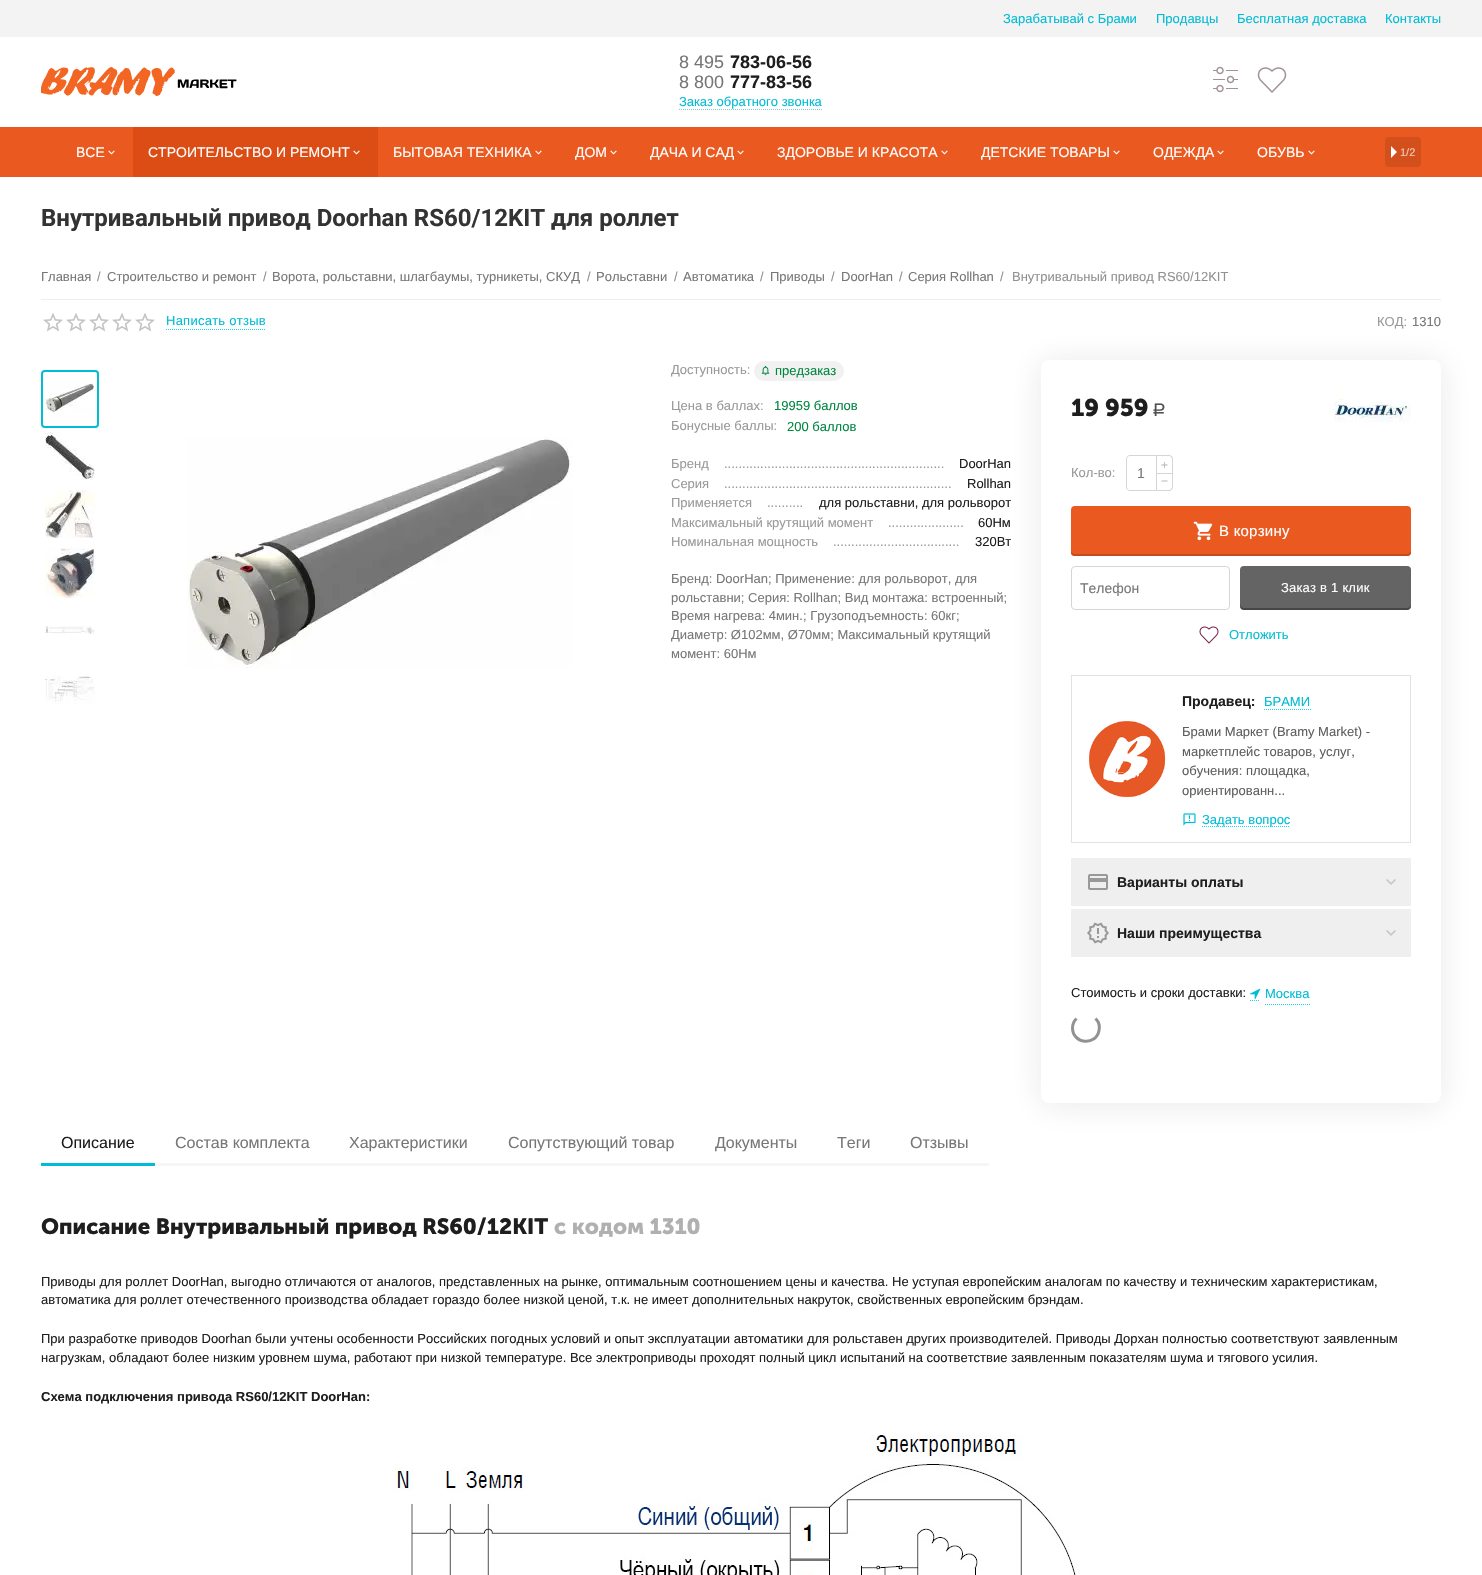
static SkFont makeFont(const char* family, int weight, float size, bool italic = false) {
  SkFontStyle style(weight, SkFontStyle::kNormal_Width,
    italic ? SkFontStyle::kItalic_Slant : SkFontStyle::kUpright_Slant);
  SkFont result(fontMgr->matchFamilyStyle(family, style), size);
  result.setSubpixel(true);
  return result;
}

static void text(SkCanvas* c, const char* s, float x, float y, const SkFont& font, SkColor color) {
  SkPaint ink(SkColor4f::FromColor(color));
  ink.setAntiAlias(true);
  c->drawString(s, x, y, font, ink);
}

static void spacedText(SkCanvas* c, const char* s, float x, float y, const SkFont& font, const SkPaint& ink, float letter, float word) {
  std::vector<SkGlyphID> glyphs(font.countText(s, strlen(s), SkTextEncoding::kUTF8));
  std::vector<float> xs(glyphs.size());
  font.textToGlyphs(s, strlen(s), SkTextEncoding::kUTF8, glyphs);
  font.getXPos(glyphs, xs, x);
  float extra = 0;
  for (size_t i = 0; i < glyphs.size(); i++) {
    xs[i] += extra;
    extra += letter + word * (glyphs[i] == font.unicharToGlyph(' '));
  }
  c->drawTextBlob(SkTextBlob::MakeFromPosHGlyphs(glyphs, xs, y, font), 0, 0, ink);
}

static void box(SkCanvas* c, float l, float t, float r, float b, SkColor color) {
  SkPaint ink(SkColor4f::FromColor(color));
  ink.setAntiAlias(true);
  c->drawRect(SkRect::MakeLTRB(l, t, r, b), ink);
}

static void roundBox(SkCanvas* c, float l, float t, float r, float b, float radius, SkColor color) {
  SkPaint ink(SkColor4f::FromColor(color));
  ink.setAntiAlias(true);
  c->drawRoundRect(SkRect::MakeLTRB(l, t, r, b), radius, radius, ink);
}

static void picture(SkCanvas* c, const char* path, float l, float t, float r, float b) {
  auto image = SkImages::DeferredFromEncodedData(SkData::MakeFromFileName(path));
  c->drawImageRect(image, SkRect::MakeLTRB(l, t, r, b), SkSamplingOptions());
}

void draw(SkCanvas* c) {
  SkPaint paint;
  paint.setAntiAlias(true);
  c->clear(0xffffffff);
  box(c, 0, 0, 1482, 37, 0xfff3f3f3);
  SkFont face1 = makeFont("Liberation Sans", 400, 13);
  text(c, "Зарабатывай с Брами", 1003, 23, face1, 0xff00bcd4);
  text(c, "Продавцы", 1156, 23, face1, 0xff00bcd4);
  text(c, "Бесплатная доставка", 1237, 23, face1, 0xff00bcd4);
  text(c, "Контакты", 1385, 23, face1, 0xff00bcd4);
  picture(c, "img_01.png", 41, 67, 237, 96);
  SkFont face2 = makeFont("Liberation Sans", 400, 18);
  text(c, "8 495", 679, 68, face2, 0xff777777);
  SkFont face3 = makeFont("Liberation Sans", 700, 18);
  text(c, "783-06-56", 730, 68, face3, 0xff1e1e1e);
  text(c, "8 800", 679, 88, face2, 0xff777777);
  text(c, "777-83-56", 730, 88, face3, 0xff1e1e1e);
  text(c, "Заказ обратного звонка", 679, 106, face1, 0xff00bcd4);
  paint.setStyle(SkPaint::kStroke_Style);
  paint.setStrokeWidth(1);
  paint.setColor(0xff7fcbd4);
  paint.setPathEffect(SkDashPathEffect::Make({{1, 1}}, 0));
  c->drawPath(SkPathBuilder().moveTo(679, 109.5f).lineTo(823, 109.5f).detach(), paint);
  paint.setPathEffect(nullptr);
  picture(c, "img_02.png", 1213, 66, 1238, 93);
  picture(c, "img_03.png", 1257, 67, 1287, 93);
  box(c, 0, 127, 1482, 177, 0xffea5920);
  SkFont face4 = makeFont("Liberation Sans", 400, 14);
  text(c, "ВСЕ", 76, 157, face4, 0xffffffff);
  picture(c, "img_04.png", 108, 150, 115, 155);
  box(c, 133, 127, 378, 177, 0xffdc4d15);
  text(c, "СТРОИТЕЛЬСТВО И РЕМОНТ", 148, 157, face4, 0xffffffff);
  picture(c, "img_05.png", 353, 150, 360, 155);
  text(c, "БЫТОВАЯ ТЕХНИКА", 393, 157, face4, 0xffffffff);
  picture(c, "img_04.png", 535, 150, 542, 155);
  text(c, "ДОМ", 575, 157, face4, 0xffffffff);
  picture(c, "img_04.png", 610, 150, 617, 155);
  text(c, "ДАЧА И САД", 650, 157, face4, 0xffffffff);
  picture(c, "img_04.png", 737, 150, 744, 155);
  text(c, "ЗДОРОВЬЕ И КРАСОТА", 777, 157, face4, 0xffffffff);
  picture(c, "img_04.png", 941, 150, 948, 155);
  text(c, "ДЕТСКИЕ ТОВАРЫ", 981, 157, face4, 0xffffffff);
  picture(c, "img_04.png", 1113, 150, 1120, 155);
  text(c, "ОДЕЖДА", 1153, 157, face4, 0xffffffff);
  picture(c, "img_04.png", 1217, 150, 1224, 155);
  text(c, "ОБУВЬ", 1257, 157, face4, 0xffffffff);
  picture(c, "img_04.png", 1308, 150, 1315, 155);
  roundBox(c, 1385, 137, 1421, 167, 4, 0xffd3501d);
  paint.setStyle(SkPaint::kFill_Style);
  paint.setColor(0xffffffff);
  c->drawPath(SkPathBuilder().moveTo(1391, 158).lineTo(1391, 146).lineTo(1397, 152).close().detach(), paint);
  SkFont face5 = makeFont("Liberation Sans", 400, 11);
  text(c, "1/2", 1400, 156, face5, 0xfff2cbbb);
  SkFont face6 = makeFont("Roboto", 700, 24);
  text(c, "Внутривальный привод Doorhan RS60/12KIT для роллет", 41, 226, face6, 0xff333333);
  box(c, 41, 299, 1441, 300, 0xffeeeeee);
  text(c, "Главная", 41, 281, face1, 0xff777777);
  text(c, "/", 97, 281, face1, 0xff919191);
  text(c, "Строительство и ремонт", 107, 281, face1, 0xff777777);
  text(c, "/", 263, 281, face1, 0xff919191);
  text(c, "Ворота, рольставни, шлагбаумы, турникеты, СКУД", 272, 281, face1, 0xff777777);
  text(c, "/", 587, 281, face1, 0xff919191);
  text(c, "Рольставни", 596, 281, face1, 0xff777777);
  text(c, "/", 674, 281, face1, 0xff919191);
  text(c, "Автоматика", 683, 281, face1, 0xff777777);
  text(c, "/", 760, 281, face1, 0xff919191);
  text(c, "Приводы", 770, 281, face1, 0xff777777);
  text(c, "/", 831, 281, face1, 0xff919191);
  text(c, "DoorHan", 841, 281, face1, 0xff777777);
  text(c, "/", 899, 281, face1, 0xff919191);
  text(c, "Серия Rollhan", 908, 281, face1, 0xff777777);
  text(c, "/", 1000, 281, face1, 0xff919191);
  text(c, "Внутривальный привод RS60/12KIT", 1012, 281, face1, 0xff919191);
  picture(c, "img_06.png", 43, 313, 155, 332);
  paint.setStyle(SkPaint::kStroke_Style);
  paint.setColor(0xff14d9f3);
  paint.setPathEffect(SkDashPathEffect::Make({{1, 1}}, 0));
  c->drawPath(SkPathBuilder().moveTo(166, 329.5f).lineTo(266, 329.5f).detach(), paint);
  paint.setPathEffect(nullptr);
  paint.setStyle(SkPaint::kFill_Style);
  paint.setColor(0xff00bcd4);
  spacedText(c, "Написать отзыв", 166, 325, face1, paint, 0.25f, 0);
  text(c, "КОД:", 1377, 326, face1, 0xff999999);
  text(c, "1310", 1412, 326, face1, 0xff777777);
  text(c, "Доступность:", 671, 374, face1, 0xff999999);
  roundBox(c, 754, 361, 844, 381, 10, 0xfff1f1f1);
  picture(c, "img_07.png", 761, 365, 770, 376);
  text(c, "предзаказ", 775, 375, face1, 0xff008641);
  text(c, "Цена в баллах:", 671, 410, face1, 0xff999999);
  text(c, "19959 баллов", 774, 410, face1, 0xff008641);
  text(c, "Бонусные баллы:", 671, 430, face1, 0xff999999);
  text(c, "200 баллов", 787, 431, face1, 0xff008641);
  text(c, "Бренд", 671, 468, face1, 0xff999999);
  text(c, ".............................................................", 724, 468, face1, 0xff999999);
  text(c, "DoorHan", 959, 468, face1, 0xff1e1e1e);
  text(c, "Серия", 671, 488, face1, 0xff999999);
  text(c, "...............................................................", 724, 488, face1, 0xff999999);
  text(c, "Rollhan", 967, 488, face1, 0xff1e1e1e);
  text(c, "Применяется", 671, 507, face1, 0xff999999);
  text(c, "..........", 767, 507, face1, 0xff999999);
  text(c, "для рольставни, для рольворот", 819, 507, face1, 0xff1e1e1e);
  text(c, "Максимальный крутящий момент", 671, 527, face1, 0xff999999);
  text(c, ".....................", 888, 527, face1, 0xff999999);
  text(c, "60Нм", 978, 527, face1, 0xff1e1e1e);
  text(c, "Номинальная мощность", 671, 546, face1, 0xff999999);
  text(c, "...................................", 833, 546, face1, 0xff999999);
  text(c, "320Вт", 975, 546, face1, 0xff1e1e1e);
  text(c, "Бренд: DoorHan; Применение: для рольворот, для", 671, 583, face1, 0xff777777);
  text(c, "рольставни; Серия: Rollhan; Вид монтажа: встроенный;", 671, 602, face1, 0xff777777);
  text(c, "Время нагрева: 4мин.; Грузоподъемность: 60кг;", 671, 620, face1, 0xff777777);
  text(c, "Диаметр: Ø102мм, Ø70мм; Максимальный крутящий", 671, 639, face1, 0xff777777);
  text(c, "момент: 60Нм", 671, 658, face1, 0xff777777);
  paint.setColor(0x1a1e1e1e);
  paint.setMaskFilter(SkMaskFilter::MakeBlur(kNormal_SkBlurStyle, 16));
  c->drawRoundRect(SkRect::MakeLTRB(1041, 362, 1441, 1105), 8, 8, paint);
  paint.setMaskFilter(nullptr);
  roundBox(c, 1041, 360, 1441, 1103, 8, 0xffffffff);
  SkFont face7 = makeFont("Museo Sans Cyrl", 700, 24);
  text(c, "19 959", 1071, 416, face7, 0xff1e1e1e);
  SkFont face8 = makeFont("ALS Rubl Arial", 400, 18);
  text(c, "Р", 1152, 416, face8, 0xff515151);
  picture(c, "img_08.png", 1334, 390, 1411, 423);
  text(c, "Кол-во:", 1071, 477, face1, 0xff999999);
  paint.setColor(0xffd5d5d5);
  c->drawPath(SkPathBuilder(SkPathFillType::kEvenOdd).moveTo(1157, 455).lineTo(1169, 455).cubicTo(1171, 455, 1173, 457, 1173, 459).lineTo(1173, 473).lineTo(1157, 473).close().moveTo(1157, 456).lineTo(1169, 456).cubicTo(1170.5f, 456, 1172, 457.5f, 1172, 459).lineTo(1172, 473).lineTo(1157, 473).close().detach(), paint);
  SkFont face9 = makeFont("Liberation Sans", 400, 12);
  text(c, "+", 1161, 469, face9, 0xffbbbbbb);
  paint.setStyle(SkPaint::kStroke_Style);
  c->drawPath(SkPathBuilder().moveTo(1130, 455.5f).lineTo(1156.5f, 455.5f).lineTo(1156.5f, 490.5f).lineTo(1130, 490.5f).cubicTo(1128, 490.5f, 1126.5f, 489, 1126.5f, 487).lineTo(1126.5f, 459).cubicTo(1126.5f, 457, 1128, 455.5f, 1130, 455.5f).close().detach(), paint);
  text(c, "1", 1137, 478, face4, 0xff777777);
  paint.setStyle(SkPaint::kFill_Style);
  c->drawPath(SkPathBuilder(SkPathFillType::kEvenOdd).moveTo(1157, 473).lineTo(1173, 473).lineTo(1173, 487).cubicTo(1173, 489, 1171, 491, 1169, 491).lineTo(1157, 491).close().moveTo(1157, 474).lineTo(1172, 474).lineTo(1172, 487).cubicTo(1172, 488.5f, 1170.5f, 490, 1169, 490).lineTo(1157, 490).close().detach(), paint);
  text(c, "−", 1161, 485, face9, 0xffbbbbbb);
  roundBox(c, 1071, 506, 1411, 556, 4, 0xffea5920);
  paint.setColor(0xffc34d1f);
  c->drawPath(SkPathBuilder().moveTo(1071, 550).cubicTo(1071, 553, 1071, 556, 1075, 556).lineTo(1407, 556).cubicTo(1411, 556, 1411, 553, 1411, 550).cubicTo(1411, 552, 1409, 554, 1407, 554).lineTo(1075, 554).cubicTo(1073, 554, 1071, 552, 1071, 550).close().detach(), paint);
  picture(c, "img_09.png", 1193, 521, 1213, 541);
  SkFont face10 = makeFont("Liberation Sans", 400, 15);
  paint.setColor(0xffffffff);
  spacedText(c, "В корзину", 1219, 536, face10, paint, 0.25f, 0);
  paint.setStyle(SkPaint::kStroke_Style);
  paint.setColor(0xffd5d5d5);
  c->drawRoundRect(SkRect::MakeLTRB(1071.5f, 566.5f, 1229.5f, 609.5f), 3.5f, 3.5f, paint);
  text(c, "Телефон", 1080, 593, face4, 0xff777777);
  roundBox(c, 1240, 566, 1411, 610, 4, 0xff646464);
  paint.setStyle(SkPaint::kFill_Style);
  paint.setColor(0x4d000000);
  c->drawPath(SkPathBuilder().moveTo(1240, 604).lineTo(1240, 606).cubicTo(1240, 608, 1242, 610, 1244, 610).lineTo(1407, 610).cubicTo(1409, 610, 1411, 608, 1411, 606).lineTo(1411, 604).cubicTo(1411, 606, 1409, 608, 1407, 608).lineTo(1244, 608).cubicTo(1242, 608, 1240, 606, 1240, 604).close().detach(), paint);
  paint.setColor(0xffffffff);
  spacedText(c, "Заказ в 1 клик", 1281, 592, face1, paint, 0.25f, 0);
  picture(c, "img_10.png", 1199, 626, 1219, 644);
  text(c, "Отложить", 1229, 639, face1, 0xff00bcd4);
  paint.setStyle(SkPaint::kStroke_Style);
  paint.setColor(0xffe1e1e1);
  c->drawRect(SkRect::MakeLTRB(1071.5f, 675.5f, 1410.5f, 842.5f), paint);
  picture(c, "img_11.png", 1089, 721, 1166, 797);
  SkFont face11 = makeFont("Liberation Sans", 700, 14);
  text(c, "Продавец:", 1182, 706, face11, 0xff1e1e1e);
  text(c, "БРАМИ", 1264, 706, face1, 0xff00bcd4);
  paint.setColor(0xff14d9f3);
  paint.setPathEffect(SkDashPathEffect::Make({{1, 1}}, 0));
  c->drawPath(SkPathBuilder().moveTo(1264, 709.5f).lineTo(1311, 709.5f).detach(), paint);
  paint.setPathEffect(nullptr);
  text(c, "Брами Маркет (Bramy Market) -", 1182, 736, face1, 0xff5e5e5e);
  text(c, "маркетплейс товаров, услуг,", 1182, 756, face1, 0xff5e5e5e);
  text(c, "обучения: площадка,", 1182, 775, face1, 0xff5e5e5e);
  text(c, "ориентированн...", 1182, 795, face1, 0xff5e5e5e);
  picture(c, "img_12.png", 1183, 813, 1196, 826);
  paint.setPathEffect(SkDashPathEffect::Make({{1, 1}}, 0));
  c->drawPath(SkPathBuilder().moveTo(1202, 826.5f).lineTo(1290, 826.5f).detach(), paint);
  paint.setPathEffect(nullptr);
  text(c, "Задать вопрос", 1202, 824, face1, 0xff00bcd4);
  box(c, 1071, 858, 1411, 906, 0xffefefef);
  picture(c, "img_13.png", 1088, 874, 1108, 890);
  text(c, "Варианты оплаты", 1117, 887, face11, 0xff1e1e1e);
  picture(c, "img_14.png", 1386, 879, 1396, 885);
  box(c, 1071, 909, 1411, 957, 0xffefefef);
  picture(c, "img_15.png", 1087, 922, 1109, 944);
  text(c, "Наши преимущества", 1117, 938, face11, 0xff1e1e1e);
  picture(c, "img_14.png", 1386, 930, 1396, 936);
  text(c, "Стоимость и сроки доставки:", 1071, 997, face1, 0xff1e1e1e);
  paint.setPathEffect(SkDashPathEffect::Make({{1, 1}}, 0));
  c->drawPath(SkPathBuilder().moveTo(1250, 1000.5f).lineTo(1260, 1000.5f).detach(), paint);
  paint.setPathEffect(nullptr);
  picture(c, "img_16.png", 1250, 988, 1261, 999);
  paint.setPathEffect(SkDashPathEffect::Make({{1, 1}}, 0));
  c->drawPath(SkPathBuilder().moveTo(1265, 1004.5f).lineTo(1310, 1004.5f).detach(), paint);
  paint.setPathEffect(nullptr);
  text(c, "Москва", 1265, 998, face1, 0xff00bcd4);
  paint.setStrokeWidth(3);
  paint.setColor(0xff929292);
  c->drawPath(SkPathBuilder().moveTo(1095.5f, 1018.5f).cubicTo(1098.5f, 1021.5f, 1100, 1026.5f, 1099, 1030.5f).cubicTo(1096, 1046.5f, 1072.5f, 1044, 1072.5f, 1028).cubicTo(1072.5f, 1024.5f, 1074, 1021, 1076.5f, 1018.5f).detach(), paint);
  paint.setStrokeWidth(2);
  paint.setColor(0xff00bcd4);
  c->drawRoundRect(SkRect::MakeLTRB(42, 371, 98, 427), 3, 3, paint);
  picture(c, "img_17.png", 45, 382, 94, 414);
  picture(c, "img_18.png", 45, 432, 95, 480);
  picture(c, "img_19.png", 45, 490, 95, 538);
  picture(c, "img_20.png", 45, 548, 95, 598);
  picture(c, "img_21.png", 45, 626, 95, 634);
  picture(c, "img_22.png", 45, 676, 95, 704);
  picture(c, "img_23.png", 187, 437, 572, 668);
  box(c, 41, 1163, 155, 1166, 0xff00bcd4);
  SkFont face12 = makeFont("Liberation Sans", 400, 16);
  text(c, "Описание", 61, 1148, face12, 0xff1e1e1e);
  box(c, 155, 1163, 989, 1166, 0xfff6f6f6);
  text(c, "Состав комплекта", 175, 1148, face12, 0xff777777);
  text(c, "Характеристики", 349, 1148, face12, 0xff777777);
  text(c, "Сопутствующий товар", 508, 1148, face12, 0xff777777);
  text(c, "Документы", 715, 1148, face12, 0xff777777);
  text(c, "Теги", 837, 1148, face12, 0xff777777);
  text(c, "Отзывы", 910, 1148, face12, 0xff777777);
  SkFont face13 = makeFont("Museo Sans Cyrl", 700, 22);
  text(c, "Описание Внутривальный привод RS60/12KIT", 41, 1234, face13, 0xff1e1e1e);
  text(c, "с кодом 1310", 554, 1234, face13, 0xffb0b0b0);
  text(c, "Приводы для роллет DoorHan, выгодно отличаются от аналогов, представленных на рынке, оптимальным соотношением цены и качества. Не уступая европейским аналогам по качеству и техническим характеристикам,", 41, 1286, face1, 0xff1e1e1e);
  text(c, "автоматика для роллет отечественного производства обладает гораздо более низкой ценой, т.к. не имеет дополнительных накруток, свойственных европейским брэндам.", 41, 1304, face1, 0xff1e1e1e);
  text(c, "При разработке приводов Doorhan были учтены особенности Российских погодных условий и опыт эксплуатации автоматики для рольставен других производителей. Приводы Дорхан полностью соответствуют заявленным", 41, 1343, face1, 0xff1e1e1e);
  text(c, "нагрузкам, обладают более низким уровнем шума, работают при низкой температуре. Все электроприводы проходят полный цикл испытаний на соответствие заявленным показателям шума и тягового усилия.", 41, 1362, face1, 0xff1e1e1e);
  SkFont face14 = makeFont("Liberation Sans", 700, 13);
  text(c, "Схема подключения привода RS60/12KIT DoorHan:", 41, 1401, face14, 0xff1e1e1e);
  picture(c, "img_24.png", 390, 1435, 1076, 1575);
}
